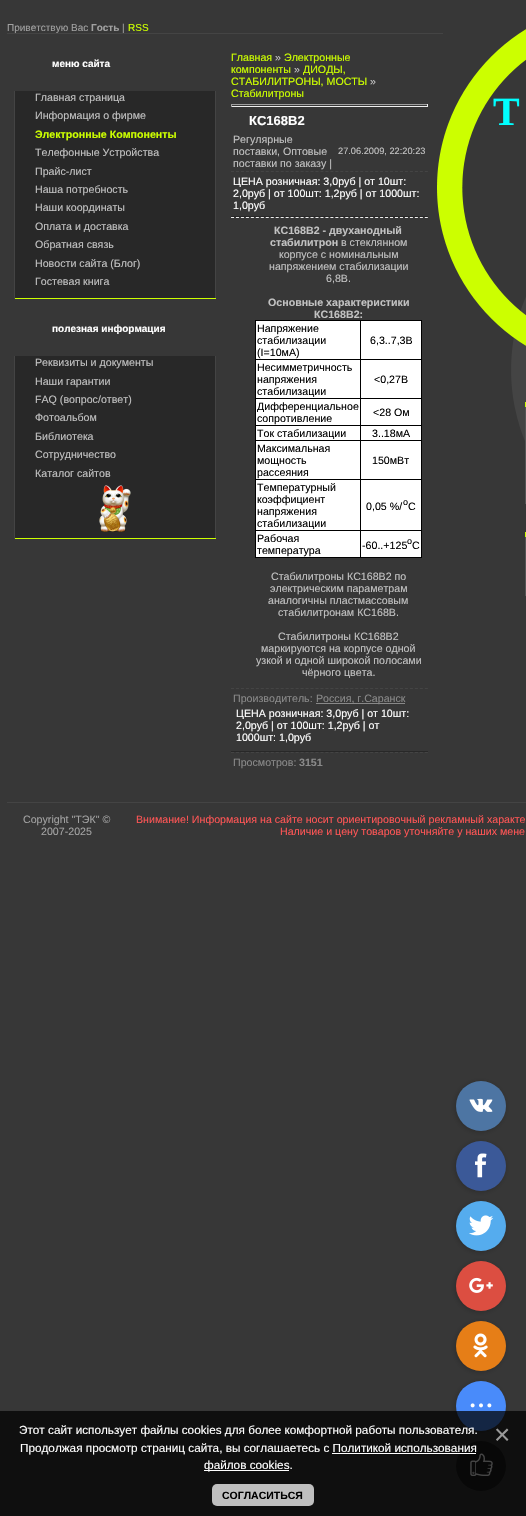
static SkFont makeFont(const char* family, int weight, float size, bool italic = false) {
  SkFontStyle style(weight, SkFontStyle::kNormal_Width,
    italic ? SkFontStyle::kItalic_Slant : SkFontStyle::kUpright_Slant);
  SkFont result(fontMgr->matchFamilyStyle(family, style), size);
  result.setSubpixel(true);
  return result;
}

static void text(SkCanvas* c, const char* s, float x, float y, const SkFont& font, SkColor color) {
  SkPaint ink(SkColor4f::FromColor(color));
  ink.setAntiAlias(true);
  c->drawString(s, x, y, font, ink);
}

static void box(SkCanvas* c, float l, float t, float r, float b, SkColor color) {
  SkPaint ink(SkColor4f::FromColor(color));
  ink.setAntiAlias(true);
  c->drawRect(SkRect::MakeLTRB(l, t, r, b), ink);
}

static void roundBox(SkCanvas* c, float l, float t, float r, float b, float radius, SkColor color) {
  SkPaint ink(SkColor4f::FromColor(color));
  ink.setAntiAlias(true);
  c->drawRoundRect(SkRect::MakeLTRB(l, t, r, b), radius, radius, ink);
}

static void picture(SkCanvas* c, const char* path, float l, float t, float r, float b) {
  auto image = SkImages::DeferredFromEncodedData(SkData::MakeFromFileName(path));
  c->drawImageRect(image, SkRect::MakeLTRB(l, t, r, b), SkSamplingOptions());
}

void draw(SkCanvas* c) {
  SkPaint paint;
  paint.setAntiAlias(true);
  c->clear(0xff373737);
  picture(c, "img_01.png", 437, 29, 526, 443);
  box(c, 7, 33, 443, 34, 0xff444444);
  SkFont face1 = makeFont("Liberation Sans", 400, 10);
  text(c, "Приветствую Вас", 7, 31, face1, 0xffa1a1a1);
  SkFont face2 = makeFont("Liberation Sans", 700, 10);
  text(c, "Гость", 91, 31, face2, 0xffa1a1a1);
  text(c, "|", 122, 31, face1, 0xffa1a1a1);
  text(c, "RSS", 128, 31, face1, 0xffccff00);
  text(c, "меню сайта", 52, 67, face2, 0xffffffff);
  box(c, 15, 91, 215, 298, 0xff282828);
  box(c, 215, 91, 216, 299, 0xff444444);
  box(c, 14, 298, 216, 299, 0xffccff00);
  box(c, 14, 91, 15, 299, 0xff444444);
  SkFont face3 = makeFont("Liberation Sans", 400, 10.65f);
  text(c, "Главная страница", 35, 101, face3, 0xffc2c2c2);
  text(c, "Информация о фирме", 35, 119, face3, 0xffc2c2c2);
  SkFont face4 = makeFont("Liberation Sans", 700, 10.65f);
  text(c, "Электронные Компоненты", 35, 138, face4, 0xffccff00);
  text(c, "Телефонные Устройства", 35, 156, face3, 0xffc2c2c2);
  text(c, "Прайс-лист", 35, 175, face3, 0xffc2c2c2);
  text(c, "Наша потребность", 35, 193, face3, 0xffc2c2c2);
  text(c, "Наши координаты", 35, 211, face3, 0xffc2c2c2);
  text(c, "Оплата и доставка", 35, 230, face3, 0xffc2c2c2);
  text(c, "Обратная связь", 35, 248, face3, 0xffc2c2c2);
  text(c, "Новости сайта (Блог)", 35, 267, face3, 0xffc2c2c2);
  text(c, "Гостевая книга", 35, 285, face3, 0xffc2c2c2);
  text(c, "полезная информация", 52, 332, face2, 0xffffffff);
  box(c, 15, 356, 215, 538, 0xff282828);
  box(c, 215, 356, 216, 539, 0xff444444);
  box(c, 14, 538, 216, 539, 0xffccff00);
  box(c, 14, 356, 15, 539, 0xff444444);
  text(c, "Реквизиты и документы", 35, 366, face3, 0xffc2c2c2);
  text(c, "Наши гарантии", 35, 385, face3, 0xffc2c2c2);
  text(c, "FAQ (вопрос/ответ)", 35, 403, face3, 0xffc2c2c2);
  text(c, "Фотоальбом", 35, 421, face3, 0xffc2c2c2);
  text(c, "Библиотека", 35, 440, face3, 0xffc2c2c2);
  text(c, "Сотрудничество", 35, 458, face3, 0xffc2c2c2);
  text(c, "Каталог сайтов", 35, 477, face3, 0xffc2c2c2);
  picture(c, "img_02.png", 99, 485, 131, 532);
  text(c, "Главная", 231, 61, face3, 0xffccff00);
  text(c, "»", 275, 61, face3, 0xffc2c2c2);
  text(c, "Электронные", 284, 61, face3, 0xffccff00);
  text(c, "компоненты", 231, 73, face3, 0xffccff00);
  text(c, "»", 294, 73, face3, 0xffc2c2c2);
  text(c, "ДИОДЫ,", 303, 73, face3, 0xffccff00);
  text(c, "СТАБИЛИТРОНЫ, МОСТЫ", 231, 85, face3, 0xffccff00);
  text(c, "»", 370, 85, face3, 0xffc2c2c2);
  text(c, "Стабилитроны", 231, 97, face3, 0xffccff00);
  box(c, 231, 104, 428, 105, 0xff9f9f9f);
  box(c, 427, 104, 428, 107, 0xffeeeeee);
  box(c, 231, 106, 428, 107, 0xffeeeeee);
  box(c, 231, 104, 232, 107, 0xff9f9f9f);
  SkFont face5 = makeFont("Liberation Sans", 700, 13);
  text(c, "КС168В2", 249, 125, face5, 0xffffffff);
  text(c, "Регулярные", 233, 143, face3, 0xffc2c2c2);
  text(c, "поставки, Оптовые", 233, 155, face3, 0xffc2c2c2);
  text(c, "поставки по заказу |", 233, 167, face3, 0xffc2c2c2);
  SkFont face6 = makeFont("Liberation Sans", 400, 9.25f);
  text(c, "27.06.2009, 22:20:23", 338, 154, face6, 0xffc2c2c2);
  paint.setStyle(SkPaint::kStroke_Style);
  paint.setStrokeWidth(1);
  paint.setColor(0xff444444);
  paint.setPathEffect(SkDashPathEffect::Make({{3, 1.97f}}, 0));
  c->drawPath(SkPathBuilder().moveTo(231, 171.5f).lineTo(428, 171.5f).detach(), paint);
  paint.setPathEffect(nullptr);
  box(c, 231, 216, 428, 217, 0xff282828);
  text(c, "ЦЕНА розничная: 3,0руб | от 10шт:", 233, 185, face3, 0xffffffff);
  text(c, "2,0руб | от 100шт: 1,2руб | от 1000шт:", 233, 197, face3, 0xffffffff);
  text(c, "1,0руб", 233, 209, face3, 0xffffffff);
  paint.setColor(0xffefefef);
  paint.setPathEffect(SkDashPathEffect::Make({{3, 1.97f}}, 0));
  c->drawPath(SkPathBuilder().moveTo(231, 217.5f).lineTo(428, 217.5f).detach(), paint);
  paint.setPathEffect(nullptr);
  text(c, "КС168В2 - двуханодный", 274, 234, face4, 0xffc2c2c2);
  text(c, "стабилитрон", 270, 246, face4, 0xffc2c2c2);
  text(c, "в стеклянном", 341, 246, face3, 0xffc2c2c2);
  text(c, "корпусе с номинальным", 279, 258, face3, 0xffc2c2c2);
  text(c, "напряжением стабилизации", 269, 270, face3, 0xffc2c2c2);
  text(c, "6,8В.", 326, 282, face3, 0xffc2c2c2);
  text(c, "Основные характеристики", 268, 306, face4, 0xffc2c2c2);
  text(c, "КС168В2:", 314, 318, face4, 0xffc2c2c2);
  box(c, 256, 321, 360, 359, 0xffffffff);
  box(c, 360, 320, 422, 321, 0xff000000);
  box(c, 360, 359, 422, 360, 0xff000000);
  box(c, 360, 398, 422, 399, 0xff000000);
  box(c, 360, 425, 422, 426, 0xff000000);
  box(c, 360, 440, 422, 441, 0xff000000);
  box(c, 360, 479, 422, 480, 0xff000000);
  box(c, 360, 530, 422, 531, 0xff000000);
  box(c, 421, 530, 422, 558, 0xff000000);
  box(c, 360, 557, 422, 558, 0xff000000);
  box(c, 360, 530, 361, 558, 0xff000000);
  box(c, 255, 530, 361, 531, 0xff000000);
  box(c, 360, 479, 361, 531, 0xff000000);
  box(c, 255, 479, 361, 480, 0xff000000);
  box(c, 360, 440, 361, 480, 0xff000000);
  box(c, 255, 440, 361, 441, 0xff000000);
  box(c, 360, 425, 361, 441, 0xff000000);
  box(c, 255, 425, 361, 426, 0xff000000);
  box(c, 360, 398, 361, 426, 0xff000000);
  box(c, 255, 398, 361, 399, 0xff000000);
  box(c, 360, 359, 361, 399, 0xff000000);
  box(c, 255, 359, 361, 360, 0xff000000);
  box(c, 360, 320, 361, 360, 0xff000000);
  box(c, 255, 320, 361, 321, 0xff000000);
  box(c, 255, 557, 361, 558, 0xff000000);
  box(c, 255, 530, 256, 558, 0xff000000);
  box(c, 255, 479, 256, 531, 0xff000000);
  box(c, 255, 440, 256, 480, 0xff000000);
  box(c, 255, 425, 256, 441, 0xff000000);
  box(c, 255, 398, 256, 426, 0xff000000);
  box(c, 255, 359, 256, 399, 0xff000000);
  box(c, 255, 320, 256, 360, 0xff000000);
  text(c, "Напряжение", 257, 332, face3, 0xff000000);
  text(c, "стабилизации", 257, 344, face3, 0xff000000);
  text(c, "(I=10мА)", 257, 356, face3, 0xff000000);
  box(c, 361, 321, 421, 359, 0xffffffff);
  box(c, 421, 479, 422, 531, 0xff000000);
  box(c, 421, 440, 422, 480, 0xff000000);
  box(c, 421, 425, 422, 441, 0xff000000);
  box(c, 421, 398, 422, 426, 0xff000000);
  box(c, 421, 359, 422, 399, 0xff000000);
  box(c, 421, 320, 422, 360, 0xff000000);
  text(c, "6,3..7,3В", 370, 344, face3, 0xff000000);
  box(c, 256, 360, 360, 398, 0xffffffff);
  text(c, "Несимметричность", 257, 371, face3, 0xff000000);
  text(c, "напряжения", 257, 383, face3, 0xff000000);
  text(c, "стабилизации", 257, 395, face3, 0xff000000);
  box(c, 361, 360, 421, 398, 0xffffffff);
  text(c, "<0,27В", 374, 383, face3, 0xff000000);
  box(c, 256, 399, 360, 425, 0xffffffff);
  text(c, "Дифференциальное", 257, 410, face3, 0xff000000);
  text(c, "сопротивление", 257, 422, face3, 0xff000000);
  box(c, 361, 399, 421, 425, 0xffffffff);
  text(c, "<28 Ом", 373, 416, face3, 0xff000000);
  box(c, 256, 426, 360, 440, 0xffffffff);
  text(c, "Ток стабилизации", 257, 437, face3, 0xff000000);
  box(c, 361, 426, 421, 440, 0xffffffff);
  text(c, "3..18мА", 372, 437, face3, 0xff000000);
  box(c, 256, 441, 360, 479, 0xffffffff);
  text(c, "Максимальная", 257, 452, face3, 0xff000000);
  text(c, "мощность", 257, 464, face3, 0xff000000);
  text(c, "рассеяния", 257, 476, face3, 0xff000000);
  box(c, 361, 441, 421, 479, 0xffffffff);
  text(c, "150мВт", 372, 464, face3, 0xff000000);
  box(c, 256, 480, 360, 530, 0xffffffff);
  text(c, "Температурный", 257, 491, face3, 0xff000000);
  text(c, "коэффициент", 257, 503, face3, 0xff000000);
  text(c, "напряжения", 257, 515, face3, 0xff000000);
  text(c, "стабилизации", 257, 527, face3, 0xff000000);
  box(c, 361, 480, 421, 530, 0xffffffff);
  text(c, "0,05 %/", 366, 510, face3, 0xff000000);
  SkFont face7 = makeFont("Liberation Sans", 400, 9);
  text(c, "o", 403, 505, face7, 0xff000000);
  text(c, "C", 408, 510, face3, 0xff000000);
  box(c, 256, 531, 360, 557, 0xffffffff);
  text(c, "Рабочая", 257, 542, face3, 0xff000000);
  text(c, "температура", 257, 554, face3, 0xff000000);
  box(c, 361, 531, 421, 557, 0xffffffff);
  text(c, "-60..+125", 362, 549, face3, 0xff000000);
  text(c, "o", 407, 544, face7, 0xff000000);
  text(c, "C", 412, 549, face3, 0xff000000);
  text(c, "Стабилитроны КС168В2 по", 271, 580, face3, 0xffc2c2c2);
  text(c, "электрическим параметрам", 270, 592, face3, 0xffc2c2c2);
  text(c, "аналогичны пластмассовым", 268, 604, face3, 0xffc2c2c2);
  text(c, "стабилитронам КС168В.", 278, 616, face3, 0xffc2c2c2);
  text(c, "Стабилитроны КС168В2", 278, 640, face3, 0xffc2c2c2);
  text(c, "маркируются на корпусе одной", 261, 652, face3, 0xffc2c2c2);
  text(c, "узкой и одной широкой полосами", 256, 664, face3, 0xffc2c2c2);
  text(c, "чёрного цвета.", 302, 676, face3, 0xffc2c2c2);
  paint.setColor(0xff444444);
  paint.setPathEffect(SkDashPathEffect::Make({{3, 1.97f}}, 0));
  c->drawPath(SkPathBuilder().moveTo(231, 688.5f).lineTo(428, 688.5f).detach(), paint);
  paint.setPathEffect(nullptr);
  box(c, 231, 751, 428, 752, 0xff282828);
  text(c, "Производитель:", 233, 702, face3, 0xff898989);
  box(c, 316, 703, 405, 704, 0xff898989);
  text(c, "Россия, г.Саранск", 316, 702, face3, 0xff898989);
  text(c, "ЦЕНА розничная: 3,0руб | от 10шт:", 236, 717, face3, 0xffffffff);
  text(c, "2,0руб | от 100шт: 1,2руб | от", 236, 729, face3, 0xffffffff);
  text(c, "1000шт: 1,0руб", 236, 741, face3, 0xffffffff);
  paint.setPathEffect(SkDashPathEffect::Make({{3, 1.97f}}, 0));
  c->drawPath(SkPathBuilder().moveTo(231, 752.5f).lineTo(428, 752.5f).detach(), paint);
  paint.setPathEffect(nullptr);
  text(c, "Просмотров:", 233, 766, face3, 0xff898989);
  text(c, "3151", 299, 766, face4, 0xff898989);
  SkFont face8 = makeFont("Liberation Serif", 700, 40);
  text(c, "Т", 493, 125, face8, 0xff00ffff);
  box(c, 525, 402, 526, 407, 0xffccff00);
  box(c, 525, 407, 526, 504, 0xff555555);
  box(c, 525, 532, 526, 537, 0xffccff00);
  box(c, 525, 537, 526, 596, 0xff555555);
  box(c, 7, 802, 526, 803, 0xff444444);
  text(c, "Copyright \"ТЭК\" ©", 23, 823, face3, 0xffa1a1a1);
  text(c, "2007-2025", 41, 835, face3, 0xffa1a1a1);
  text(c, "Внимание! Информация на сайте носит ориентировочный рекламный характе", 136, 823, face3, 0xffff5555);
  text(c, "Наличие и цену товаров уточняйте у наших мене", 280, 835, face3, 0xffff5555);
  paint.setStyle(SkPaint::kFill_Style);
  paint.setColor(0x33000000);
  paint.setMaskFilter(SkMaskFilter::MakeBlur(kNormal_SkBlurStyle, 2.5f));
  c->drawRoundRect(SkRect::MakeLTRB(455, 1082, 505, 1132), 25, 25, paint);
  paint.setMaskFilter(nullptr);
  paint.setColor(0xff4d75a3);
  c->drawCircle(481, 1106, 25, paint);
  picture(c, "img_03.png", 469, 1098, 493, 1112);
  paint.setColor(0x33000000);
  paint.setMaskFilter(SkMaskFilter::MakeBlur(kNormal_SkBlurStyle, 2.5f));
  c->drawRoundRect(SkRect::MakeLTRB(455, 1142, 505, 1192), 25, 25, paint);
  paint.setMaskFilter(nullptr);
  paint.setColor(0xff3b5998);
  c->drawCircle(481, 1166, 25, paint);
  picture(c, "img_04.png", 475, 1153, 487, 1178);
  paint.setColor(0x33000000);
  paint.setMaskFilter(SkMaskFilter::MakeBlur(kNormal_SkBlurStyle, 2.5f));
  c->drawRoundRect(SkRect::MakeLTRB(455, 1202, 505, 1252), 25, 25, paint);
  paint.setMaskFilter(nullptr);
  paint.setColor(0xff55acee);
  c->drawCircle(481, 1226, 25, paint);
  picture(c, "img_05.png", 469, 1215, 494, 1236);
  paint.setColor(0x33000000);
  paint.setMaskFilter(SkMaskFilter::MakeBlur(kNormal_SkBlurStyle, 2.5f));
  c->drawRoundRect(SkRect::MakeLTRB(455, 1262, 505, 1312), 25, 25, paint);
  paint.setMaskFilter(nullptr);
  paint.setColor(0xffdc4e41);
  c->drawCircle(481, 1286, 25, paint);
  picture(c, "img_06.png", 469, 1277, 493, 1293);
  paint.setColor(0x33000000);
  paint.setMaskFilter(SkMaskFilter::MakeBlur(kNormal_SkBlurStyle, 2.5f));
  c->drawRoundRect(SkRect::MakeLTRB(455, 1322, 505, 1372), 25, 25, paint);
  paint.setMaskFilter(nullptr);
  paint.setColor(0xffe67e17);
  c->drawCircle(481, 1346, 25, paint);
  picture(c, "img_07.png", 473, 1333, 488, 1358);
  paint.setColor(0x33000000);
  paint.setMaskFilter(SkMaskFilter::MakeBlur(kNormal_SkBlurStyle, 2.5f));
  c->drawRoundRect(SkRect::MakeLTRB(455, 1382, 505, 1432), 25, 25, paint);
  paint.setMaskFilter(nullptr);
  paint.setColor(0xff498bfa);
  c->drawCircle(481, 1406, 25, paint);
  picture(c, "img_08.png", 470, 1403, 492, 1408);
  paint.setColor(0x80000000);
  c->drawCircle(481, 1466, 25, paint);
  picture(c, "img_09.png", 470, 1453, 493, 1476);
  box(c, 0, 1411, 526, 1516, 0xba000000);
  SkFont face9 = makeFont("Liberation Sans", 400, 11.75f);
  text(c, "Этот сайт использует файлы cookies для более комфортной работы пользователя.", 19, 1434, face9, 0xffffffff);
  text(c, "Продолжая просмотр страниц сайта, вы соглашаетесь с Политикой использования", 20, 1452, face9, 0xffffffff);
  box(c, 204, 1470, 289, 1471, 0xffffffff);
  text(c, "файлов cookies.", 204, 1469, face9, 0xffffffff);
  box(c, 332, 1453, 476, 1454, 0xffffffff);
  SkFont face10 = makeFont("Liberation Sans", 400, 28);
  text(c, "×", 494, 1444, face10, 0xff999999);
  roundBox(c, 212, 1484, 314, 1506, 5, 0xffbfbfbf);
  SkFont face11 = makeFont("Liberation Sans", 700, 10.5f);
  text(c, "СОГЛАСИТЬСЯ", 222, 1499, face11, 0xff000000);
}
